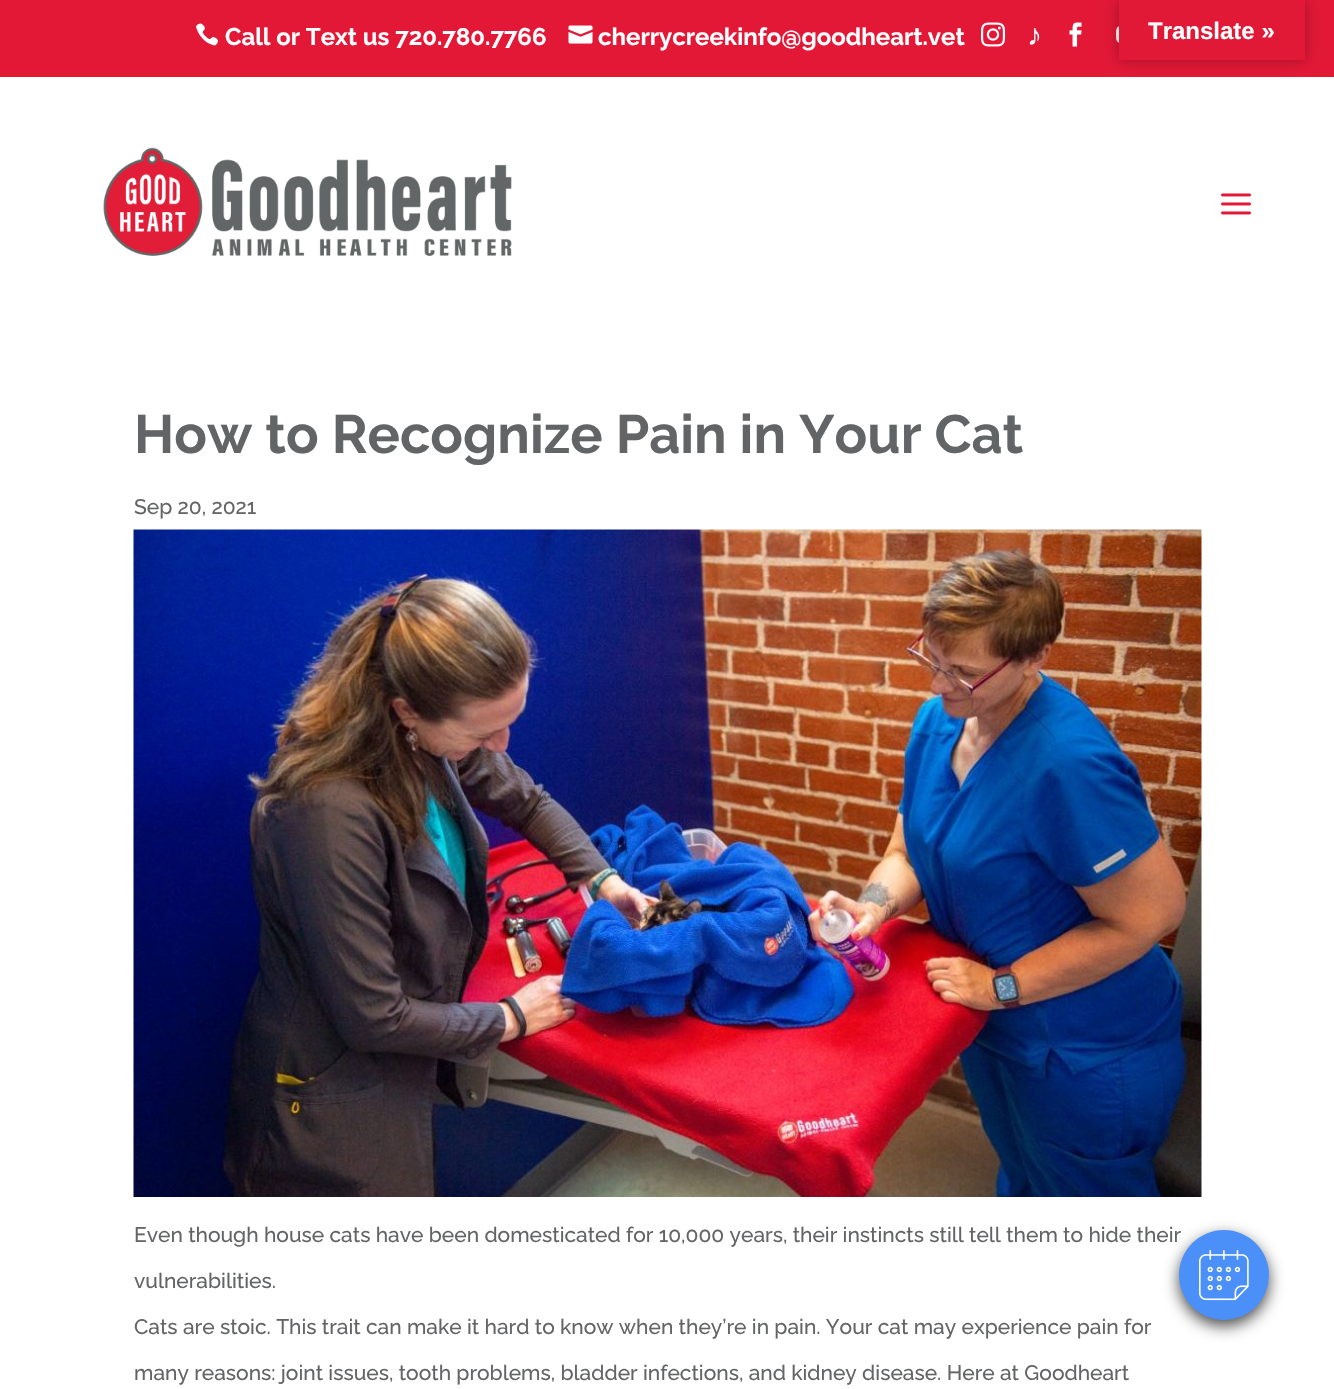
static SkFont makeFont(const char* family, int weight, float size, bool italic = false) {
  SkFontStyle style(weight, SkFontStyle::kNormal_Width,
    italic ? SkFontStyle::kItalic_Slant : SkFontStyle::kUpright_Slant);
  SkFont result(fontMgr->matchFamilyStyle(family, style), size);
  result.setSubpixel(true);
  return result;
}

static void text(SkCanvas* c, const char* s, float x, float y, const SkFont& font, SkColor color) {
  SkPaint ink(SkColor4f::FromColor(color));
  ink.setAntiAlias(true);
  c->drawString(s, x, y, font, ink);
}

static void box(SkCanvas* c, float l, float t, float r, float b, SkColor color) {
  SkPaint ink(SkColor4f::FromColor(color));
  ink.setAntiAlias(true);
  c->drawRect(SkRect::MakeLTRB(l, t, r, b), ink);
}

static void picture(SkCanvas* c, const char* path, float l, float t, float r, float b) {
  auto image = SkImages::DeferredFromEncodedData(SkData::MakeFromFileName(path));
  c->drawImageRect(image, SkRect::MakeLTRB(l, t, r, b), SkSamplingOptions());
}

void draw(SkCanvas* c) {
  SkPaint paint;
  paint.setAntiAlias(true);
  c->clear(0xffe31837);
  picture(c, "img_01.png", 196, 23, 218, 46);
  SkFont face1 = makeFont("Raleway", 700, 24);
  text(c, "Call or Text us 720.780.7766", 225, 45, face1, 0xffffffff);
  picture(c, "img_02.png", 568, 25, 593, 44);
  text(c, "cherrycreekinfo@goodheart.vet", 598, 45, face1, 0xffffffff);
  picture(c, "img_03.png", 981, 22, 1005, 47);
  SkFont face2 = makeFont("Liberation Serif", 400, 30);
  text(c, "♪", 1027, 45, face2, 0xffffffff);
  picture(c, "img_04.png", 1069, 22, 1082, 47);
  picture(c, "img_05.png", 1116, 26, 1119, 43);
  box(c, 0, 77, 1334, 1389, 0xffffffff);
  picture(c, "img_06.png", 103, 147, 512, 256);
  picture(c, "img_07.png", 1221, 193, 1251, 215);
  SkFont face3 = makeFont("Raleway", 700, 54);
  text(c, "How to Recognize Pain in Your Cat", 134, 453, face3, 0xff636466);
  SkFont face4 = makeFont("Raleway", 500, 21);
  text(c, "Sep 20, 2021", 134, 514, face4, 0xff636466);
  picture(c, "img_08.png", 133, 529, 1202, 1197);
  text(c, "Even though house cats have been domesticated for 10,000 years, their instincts still tell them to hide their", 134, 1242, face4, 0xff636466);
  text(c, "vulnerabilities.", 134, 1288, face4, 0xff636466);
  text(c, "Cats are stoic. This trait can make it hard to know when they’re in pain. Your cat may experience pain for", 134, 1334, face4, 0xff636466);
  text(c, "many reasons: joint issues, tooth problems, bladder infections, and kidney disease. Here at Goodheart", 134, 1380, face4, 0xff636466);
  paint.setColor(0x4d000000);
  paint.setMaskFilter(SkMaskFilter::MakeBlur(kNormal_SkBlurStyle, 7));
  c->drawRect(SkRect::MakeLTRB(1119, 0, 1305, 60), paint);
  paint.setMaskFilter(nullptr);
  box(c, 1119, 0, 1305, 60, 0xffe21837);
  SkFont face5 = makeFont("Liberation Sans", 700, 24);
  text(c, "Translate »", 1148, 39, face5, 0xffffffff);
  paint.setColor(0xb3000000);
  paint.setMaskFilter(SkMaskFilter::MakeBlur(kNormal_SkBlurStyle, 7.5f));
  c->drawRoundRect(SkRect::MakeLTRB(1179, 1236, 1269, 1326), 45, 45, paint);
  paint.setMaskFilter(nullptr);
  paint.setColor(0xff4b90f8);
  c->drawCircle(1224, 1275, 45, paint);
  picture(c, "img_09.png", 1199, 1250, 1249, 1301);
}
